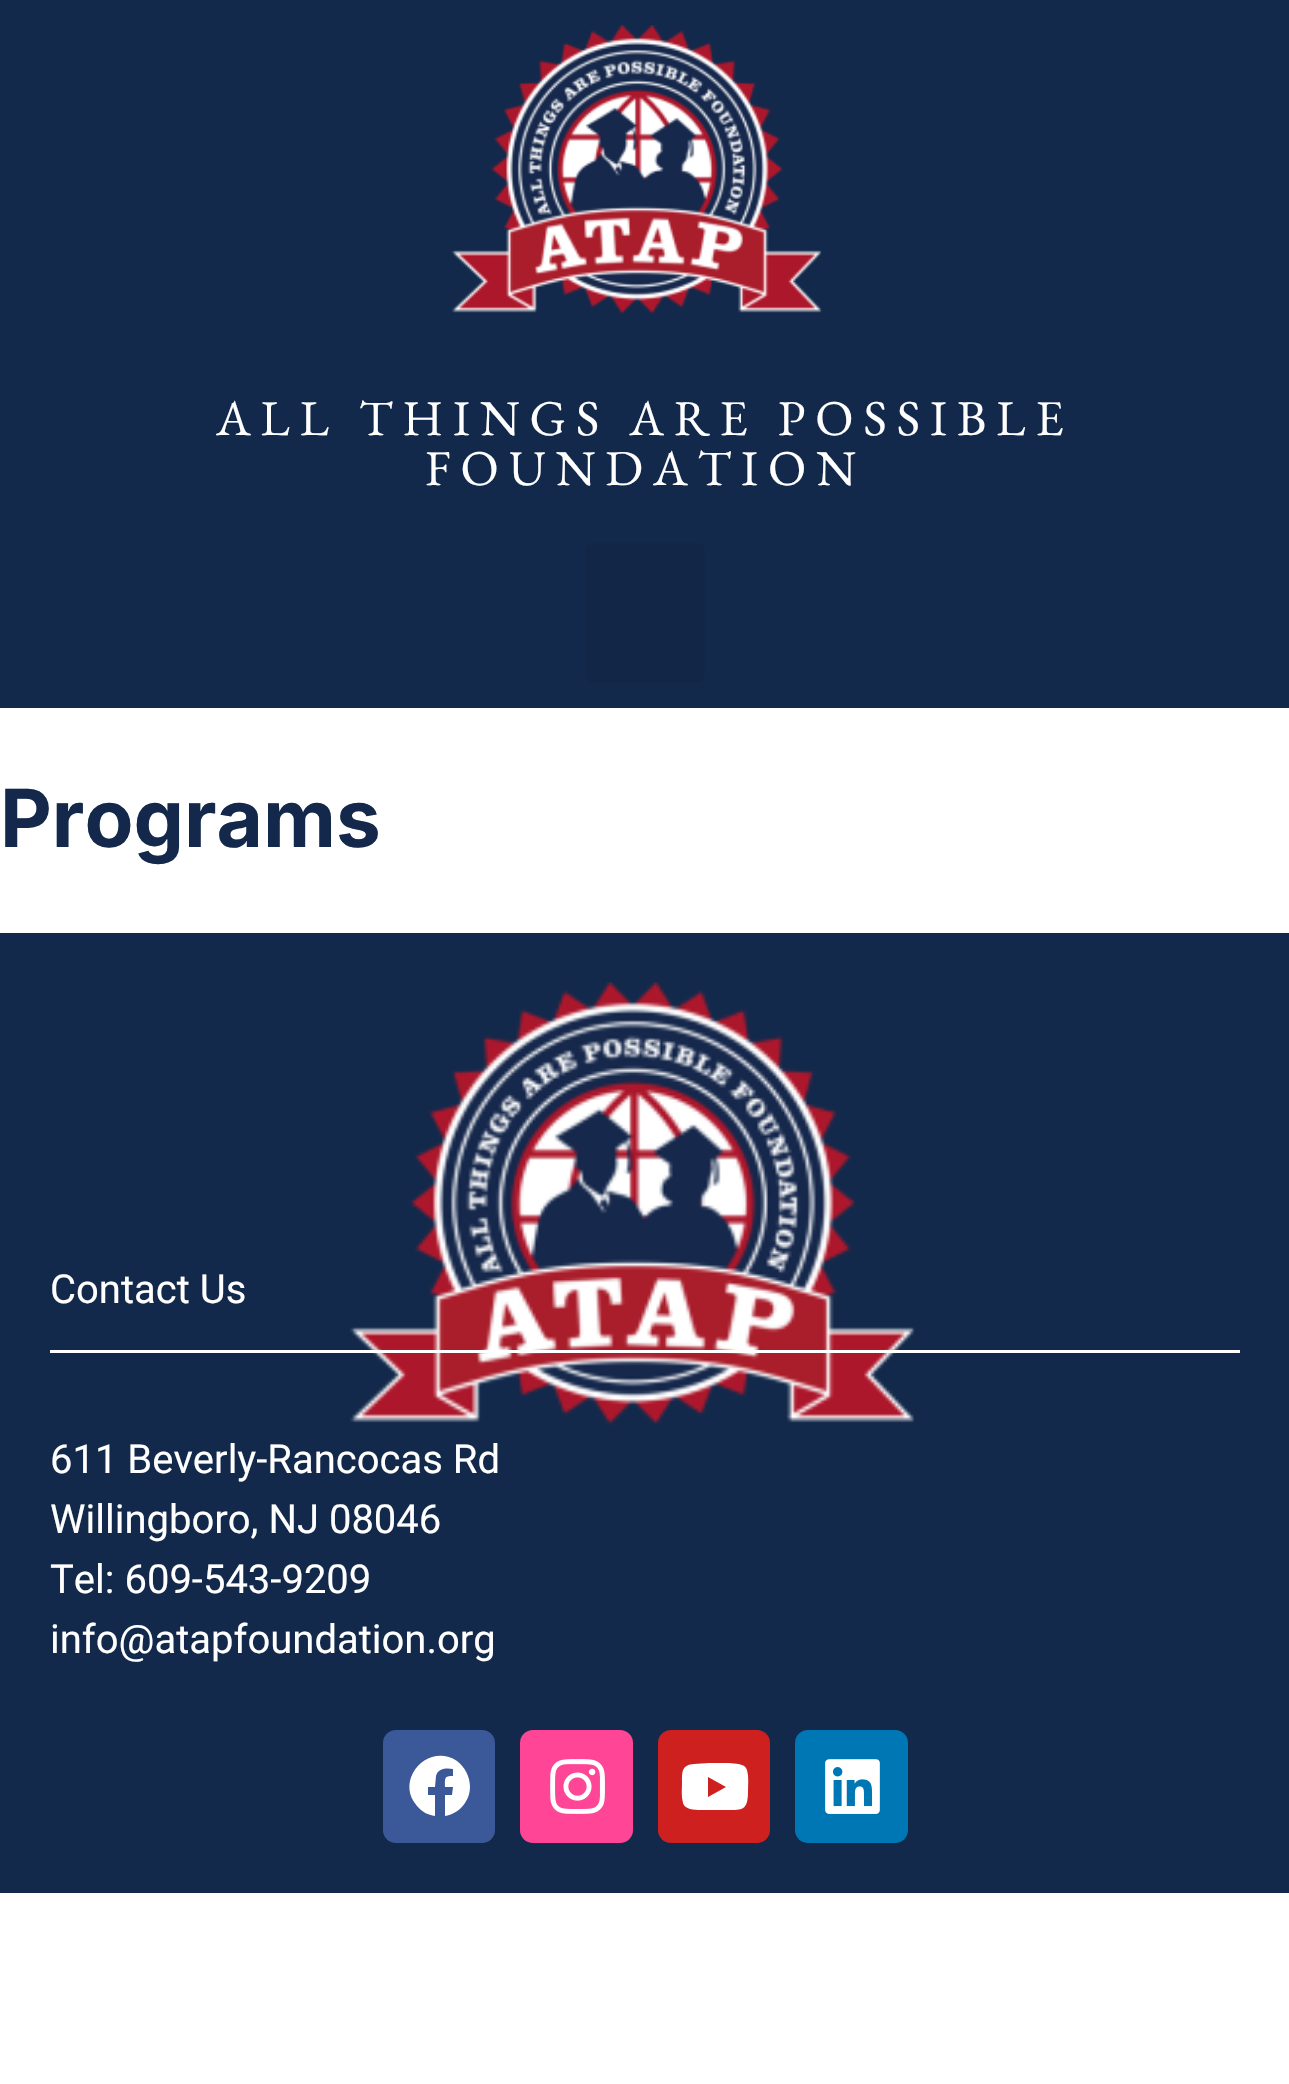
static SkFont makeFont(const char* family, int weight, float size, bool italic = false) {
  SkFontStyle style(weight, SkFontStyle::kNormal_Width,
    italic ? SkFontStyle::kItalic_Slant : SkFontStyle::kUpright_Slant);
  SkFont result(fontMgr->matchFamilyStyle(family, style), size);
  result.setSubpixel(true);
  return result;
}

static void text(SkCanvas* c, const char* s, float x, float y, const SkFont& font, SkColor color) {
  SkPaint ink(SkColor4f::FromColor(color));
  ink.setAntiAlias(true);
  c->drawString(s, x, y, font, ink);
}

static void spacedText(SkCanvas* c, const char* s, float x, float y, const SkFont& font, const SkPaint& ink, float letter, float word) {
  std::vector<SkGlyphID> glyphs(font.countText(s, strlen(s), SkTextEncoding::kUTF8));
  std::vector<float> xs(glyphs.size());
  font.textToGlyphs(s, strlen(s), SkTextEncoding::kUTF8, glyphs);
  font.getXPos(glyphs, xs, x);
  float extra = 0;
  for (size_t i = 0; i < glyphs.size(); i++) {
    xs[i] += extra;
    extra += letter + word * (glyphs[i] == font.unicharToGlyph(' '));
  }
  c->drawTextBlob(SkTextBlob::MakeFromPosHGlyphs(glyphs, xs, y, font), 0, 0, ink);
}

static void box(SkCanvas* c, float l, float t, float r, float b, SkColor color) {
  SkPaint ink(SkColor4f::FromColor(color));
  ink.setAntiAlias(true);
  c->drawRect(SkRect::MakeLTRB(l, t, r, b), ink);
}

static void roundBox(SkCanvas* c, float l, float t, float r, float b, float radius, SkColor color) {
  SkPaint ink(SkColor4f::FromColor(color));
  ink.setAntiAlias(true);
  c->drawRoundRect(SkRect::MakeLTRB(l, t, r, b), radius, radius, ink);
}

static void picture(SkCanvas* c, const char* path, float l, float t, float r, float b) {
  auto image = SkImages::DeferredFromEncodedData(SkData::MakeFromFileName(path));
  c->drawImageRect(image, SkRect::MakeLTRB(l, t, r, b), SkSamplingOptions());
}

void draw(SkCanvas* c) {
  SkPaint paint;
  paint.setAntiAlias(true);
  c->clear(0xffffffff);
  box(c, 0, 0, 1289, 708, 0xff13294b);
  picture(c, "img_01.png", 451, 25, 822, 314);
  SkFont face1 = makeFont("EB Garamond", 400, 50);
  paint.setColor(0xffffffff);
  spacedText(c, "ALL THINGS ARE POSSIBLE", 216, 435, face1, paint, 10, 0);
  spacedText(c, "FOUNDATION", 425, 485, face1, paint, 10, 0);
  roundBox(c, 585, 543, 705, 683, 8, 0xff122747);
  SkFont face2 = makeFont("Inter", 700, 80);
  text(c, "Programs", 0, 847, face2, 0xff14284b);
  box(c, 0, 933, 1289, 1893, 0xff13294b);
  picture(c, "img_02.png", 350, 982, 915, 1425);
  SkFont face3 = makeFont("Roboto", 400, 40);
  text(c, "Contact Us", 50, 1303, face3, 0xffffffff);
  box(c, 50, 1350, 1240, 1353, 0xffffffff);
  text(c, "611 Beverly-Rancocas Rd", 50, 1473, face3, 0xffffffff);
  text(c, "Willingboro, NJ 08046", 50, 1533, face3, 0xffffffff);
  text(c, "Tel: 609-543-9209", 50, 1593, face3, 0xffffffff);
  text(c, "info@atapfoundation.org", 50, 1653, face3, 0xffffffff);
  roundBox(c, 383, 1730, 495, 1843, 13, 0xff3b5998);
  c->drawPath(SkPathBuilder().moveTo(470, 1787).cubicTo(470, 1801, 459, 1814, 445, 1816).lineTo(445, 1795).lineTo(452, 1795).lineTo(453, 1787).lineTo(445, 1787).cubicTo(445, 1778, 444, 1776, 453, 1776).lineTo(453, 1769).cubicTo(447, 1768, 438, 1768, 436, 1776).lineTo(435, 1787).lineTo(428, 1787).lineTo(428, 1795).lineTo(435, 1795).lineTo(435, 1816).cubicTo(428, 1815, 422, 1812, 417, 1806).cubicTo(394, 1780, 428, 1742, 457, 1761).cubicTo(465, 1767, 470, 1777, 470, 1787).close().detach(), paint);
  roundBox(c, 520, 1730, 633, 1843, 13, 0xffff4696);
  picture(c, "img_03.png", 550, 1759, 605, 1814);
  roundBox(c, 658, 1730, 770, 1843, 13, 0xffcd201f);
  c->drawPath(SkPathBuilder().moveTo(747, 1770).cubicTo(749, 1777, 748, 1784, 748, 1791).cubicTo(748, 1812, 742, 1810, 722, 1810).lineTo(706, 1810).cubicTo(699, 1810, 685, 1811, 683, 1803).cubicTo(681, 1796, 682, 1789, 682, 1782).cubicTo(682, 1771, 682, 1765, 694, 1764).lineTo(709, 1763).lineTo(729, 1763).cubicTo(735, 1764, 745, 1763, 747, 1770).close().moveTo(708, 1797).lineTo(726, 1787).lineTo(708, 1777).close().detach(), paint);
  roundBox(c, 795, 1730, 908, 1843, 13, 0xff0077b5);
  picture(c, "img_04.png", 825, 1759, 880, 1814);
}
